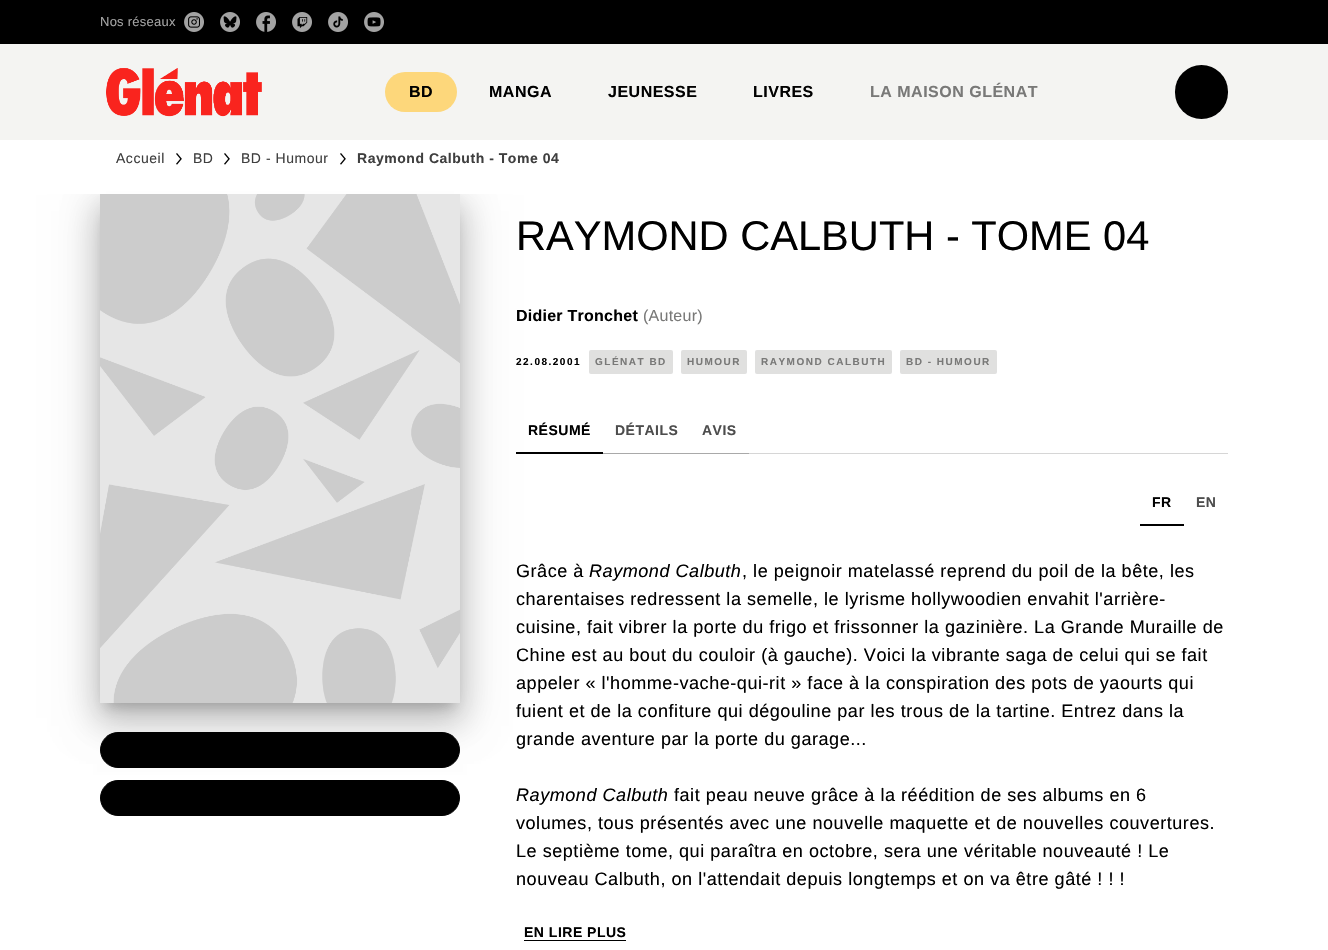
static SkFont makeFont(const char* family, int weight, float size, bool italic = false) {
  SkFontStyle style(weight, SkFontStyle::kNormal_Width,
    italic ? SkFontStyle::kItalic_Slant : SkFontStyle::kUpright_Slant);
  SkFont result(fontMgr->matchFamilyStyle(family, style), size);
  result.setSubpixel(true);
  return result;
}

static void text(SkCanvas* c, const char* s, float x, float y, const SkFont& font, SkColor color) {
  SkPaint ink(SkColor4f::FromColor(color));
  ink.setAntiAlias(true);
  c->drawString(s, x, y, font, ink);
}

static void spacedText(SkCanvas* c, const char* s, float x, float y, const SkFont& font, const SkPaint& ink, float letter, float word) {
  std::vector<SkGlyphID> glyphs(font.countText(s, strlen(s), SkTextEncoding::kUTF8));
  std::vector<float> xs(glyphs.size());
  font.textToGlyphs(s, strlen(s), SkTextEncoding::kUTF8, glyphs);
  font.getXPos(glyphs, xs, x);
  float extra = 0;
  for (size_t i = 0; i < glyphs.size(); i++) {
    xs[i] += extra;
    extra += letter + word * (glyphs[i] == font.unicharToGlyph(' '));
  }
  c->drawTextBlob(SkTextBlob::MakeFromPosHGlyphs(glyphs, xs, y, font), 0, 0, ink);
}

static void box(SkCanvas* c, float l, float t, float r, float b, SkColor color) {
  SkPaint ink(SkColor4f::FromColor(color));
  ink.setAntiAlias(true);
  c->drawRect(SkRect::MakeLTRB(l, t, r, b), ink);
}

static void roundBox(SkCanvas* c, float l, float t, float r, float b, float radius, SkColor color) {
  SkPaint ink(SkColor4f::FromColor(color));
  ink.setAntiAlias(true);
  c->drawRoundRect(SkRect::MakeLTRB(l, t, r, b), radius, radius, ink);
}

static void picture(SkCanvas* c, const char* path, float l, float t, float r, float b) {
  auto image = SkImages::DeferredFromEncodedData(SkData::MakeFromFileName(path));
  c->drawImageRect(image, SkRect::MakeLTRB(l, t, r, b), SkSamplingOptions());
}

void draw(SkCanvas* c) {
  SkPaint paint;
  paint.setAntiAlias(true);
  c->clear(0xffffffff);
  box(c, 0, 0, 1328, 44, 0xff000000);
  SkFont face1 = makeFont("Liberation Sans", 400, 13);
  paint.setColor(0xffa3a3a3);
  spacedText(c, "Nos réseaux", 100, 26, face1, paint, 0.25f, 0);
  picture(c, "img_01.png", 184, 12, 204, 32);
  picture(c, "img_02.png", 220, 12, 240, 32);
  picture(c, "img_03.png", 256, 12, 276, 32);
  picture(c, "img_04.png", 292, 12, 312, 32);
  picture(c, "img_05.png", 328, 12, 348, 32);
  picture(c, "img_06.png", 364, 12, 384, 32);
  picture(c, "img_08.png", 176, 153, 182, 165);
  picture(c, "img_08.png", 224, 153, 230, 165);
  picture(c, "img_08.png", 340, 153, 346, 165);
  c->save();
  c->clipRect(SkRect::MakeLTRB(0, 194, 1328, 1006));
  paint.setColor(0x1f000000);
  paint.setMaskFilter(SkMaskFilter::MakeBlur(kNormal_SkBlurStyle, 19));
  c->drawRect(SkRect::MakeLTRB(93, 195, 467, 718), paint);
  paint.setMaskFilter(nullptr);
  c->restore();
  box(c, 0, 44, 1328, 140, 0xfff4f4f2);
  picture(c, "img_07.png", 106, 68, 262, 117);
  roundBox(c, 385, 72, 457, 112, 20, 0xfffdd77b);
  SkFont face2 = makeFont("Liberation Sans", 700, 16);
  paint.setColor(0xff000000);
  spacedText(c, "BD", 409, 97, face2, paint, 0.5f, 0);
  spacedText(c, "MANGA", 489, 97, face2, paint, 0.5f, 0);
  spacedText(c, "JEUNESSE", 608, 97, face2, paint, 0.5f, 0);
  spacedText(c, "LIVRES", 753, 97, face2, paint, 0.5f, 0);
  paint.setColor(0xff797978);
  spacedText(c, "LA MAISON GLÉNAT", 870, 97, face2, paint, 0.5f, 0);
  roundBox(c, 1175, 65, 1228, 119, 26.5f, 0xff000000);
  SkFont face3 = makeFont("Liberation Sans", 400, 14);
  paint.setColor(0xff3f3f3f);
  spacedText(c, "Accueil", 116, 163, face3, paint, 0.53f, 0);
  spacedText(c, "BD", 193, 163, face3, paint, 0.53f, 0);
  spacedText(c, "BD - Humour", 241, 163, face3, paint, 0.53f, 0);
  SkFont face4 = makeFont("Liberation Sans", 700, 14);
  spacedText(c, "Raymond Calbuth - Tome 04", 357, 163, face4, paint, 0.53f, 0);
  c->save();
  c->clipRect(SkRect::MakeLTRB(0, 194, 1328, 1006));
  paint.setColor(0x24000000);
  paint.setMaskFilter(SkMaskFilter::MakeBlur(kNormal_SkBlurStyle, 15.5f));
  c->drawRect(SkRect::MakeLTRB(97, 211, 463, 726), paint);
  paint.setMaskFilter(nullptr);
  c->restore();
  paint.setColor(0x33000000);
  paint.setMaskFilter(SkMaskFilter::MakeBlur(kNormal_SkBlurStyle, 6.5f));
  c->drawRect(SkRect::MakeLTRB(106, 210, 454, 707), paint);
  paint.setMaskFilter(nullptr);
  picture(c, "img_09.png", 100, 194, 460, 703);
  paint.setColor(0xff000000);
  c->drawRoundRect(SkRect::MakeLTRB(100.5f, 732.5f, 459.5f, 767.5f), 17.5f, 17.5f, paint);
  paint.setStyle(SkPaint::kStroke_Style);
  paint.setStrokeWidth(1);
  c->drawRoundRect(SkRect::MakeLTRB(100.5f, 732.5f, 459.5f, 767.5f), 17.5f, 17.5f, paint);
  paint.setStyle(SkPaint::kFill_Style);
  c->drawRoundRect(SkRect::MakeLTRB(100.5f, 780.5f, 459.5f, 815.5f), 17.5f, 17.5f, paint);
  paint.setStyle(SkPaint::kStroke_Style);
  c->drawRoundRect(SkRect::MakeLTRB(100.5f, 780.5f, 459.5f, 815.5f), 17.5f, 17.5f, paint);
  SkFont face5 = makeFont("Liberation Sans", 400, 41.6f);
  text(c, "RAYMOND CALBUTH - TOME 04", 516, 250, face5, 0xff000000);
  paint.setStyle(SkPaint::kFill_Style);
  spacedText(c, "Didier Tronchet", 516, 321, face2, paint, 0.25f, 0);
  SkFont face6 = makeFont("Liberation Sans", 400, 16);
  paint.setColor(0xff797978);
  spacedText(c, "(Auteur)", 643, 321, face6, paint, 0.25f, 0);
  SkFont face7 = makeFont("Liberation Sans", 700, 10);
  paint.setColor(0xff000000);
  spacedText(c, "22.08.2001", 516, 365, face7, paint, 1.5f, 0);
  roundBox(c, 589, 350, 673, 374, 2, 0xffe0e0df);
  paint.setColor(0xff797978);
  spacedText(c, "GLÉNAT BD", 595, 365, face7, paint, 1.5f, 0);
  roundBox(c, 681, 350, 747, 374, 2, 0xffe0e0df);
  spacedText(c, "HUMOUR", 687, 365, face7, paint, 1.5f, 0);
  roundBox(c, 755, 350, 892, 374, 2, 0xffe0e0df);
  spacedText(c, "RAYMOND CALBUTH", 761, 365, face7, paint, 1.5f, 0);
  roundBox(c, 900, 350, 997, 374, 2, 0xffe0e0df);
  spacedText(c, "BD - HUMOUR", 906, 365, face7, paint, 1.5f, 0);
  paint.setColor(0xff000000);
  spacedText(c, "RÉSUMÉ", 528, 435, face4, paint, 0.5f, 0);
  box(c, 516, 452, 603, 454, 0xff000000);
  paint.setColor(0xff4d4d4d);
  spacedText(c, "DÉTAILS", 615, 435, face4, paint, 0.5f, 0);
  box(c, 603, 453, 749, 454, 0xffa9a9a9);
  spacedText(c, "AVIS", 702, 435, face4, paint, 0.5f, 0);
  box(c, 749, 453, 1228, 454, 0xffd6d6d6);
  paint.setColor(0xff000000);
  spacedText(c, "FR", 1152, 507, face4, paint, 0.5f, 0);
  box(c, 1140, 524, 1184, 526, 0xff000000);
  paint.setColor(0xff4d4d4d);
  spacedText(c, "EN", 1196, 507, face4, paint, 0.5f, 0);
  SkFont face8 = makeFont("Liberation Sans", 400, 18.05f);
  paint.setColor(0xff000000);
  spacedText(c, "Grâce à", 516, 577, face8, paint, 0.53f, 0);
  SkFont face9 = makeFont("Liberation Sans", 400, 18.05f, true);
  spacedText(c, "Raymond Calbuth", 589, 577, face9, paint, 0.53f, 0);
  spacedText(c, ", le peignoir matelassé reprend du poil de la bête, les", 742, 577, face8, paint, 0.53f, 0);
  spacedText(c, "charentaises redressent la semelle, le lyrisme hollywoodien envahit l'arrière-", 516, 605, face8, paint, 0.53f, 0);
  spacedText(c, "cuisine, fait vibrer la porte du frigo et frissonner la gazinière. La Grande Muraille de", 516, 633, face8, paint, 0.53f, 0);
  spacedText(c, "Chine est au bout du couloir (à gauche). Voici la vibrante saga de celui qui se fait", 516, 661, face8, paint, 0.53f, 0);
  spacedText(c, "appeler « l'homme-vache-qui-rit » face à la conspiration des pots de yaourts qui", 516, 689, face8, paint, 0.53f, 0);
  spacedText(c, "fuient et de la confiture qui dégouline par les trous de la tartine. Entrez dans la", 516, 717, face8, paint, 0.53f, 0);
  spacedText(c, "grande aventure par la porte du garage...", 516, 745, face8, paint, 0.53f, 0);
  spacedText(c, "Raymond Calbuth", 516, 801, face9, paint, 0.53f, 0);
  spacedText(c, "fait peau neuve grâce à la réédition de ses albums en 6", 674, 801, face8, paint, 0.53f, 0);
  spacedText(c, "volumes, tous présentés avec une nouvelle maquette et de nouvelles couvertures.", 516, 829, face8, paint, 0.53f, 0);
  spacedText(c, "Le septième tome, qui paraîtra en octobre, sera une véritable nouveauté ! Le", 516, 857, face8, paint, 0.53f, 0);
  spacedText(c, "nouveau Calbuth, on l'attendait depuis longtemps et on va être gâté ! ! !", 516, 885, face8, paint, 0.53f, 0);
  spacedText(c, "EN LIRE PLUS", 524, 937, face4, paint, 0.5f, 0);
  box(c, 524, 940, 626, 941, 0xff000000);
}
